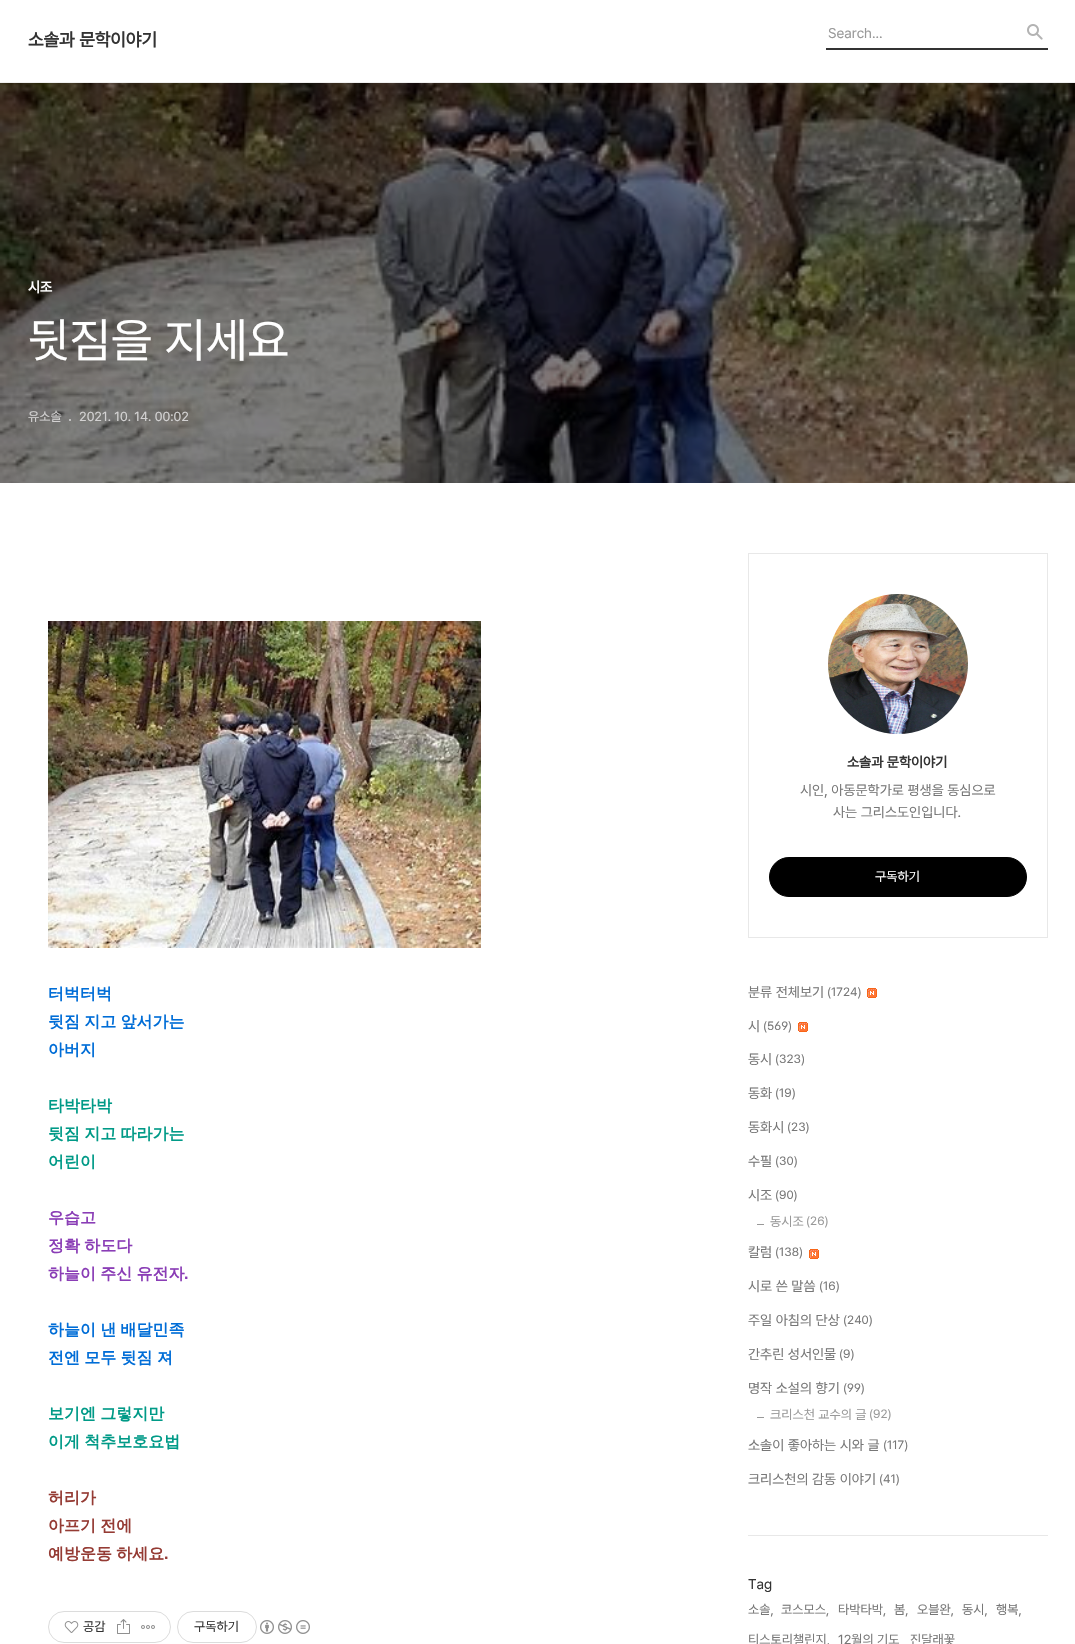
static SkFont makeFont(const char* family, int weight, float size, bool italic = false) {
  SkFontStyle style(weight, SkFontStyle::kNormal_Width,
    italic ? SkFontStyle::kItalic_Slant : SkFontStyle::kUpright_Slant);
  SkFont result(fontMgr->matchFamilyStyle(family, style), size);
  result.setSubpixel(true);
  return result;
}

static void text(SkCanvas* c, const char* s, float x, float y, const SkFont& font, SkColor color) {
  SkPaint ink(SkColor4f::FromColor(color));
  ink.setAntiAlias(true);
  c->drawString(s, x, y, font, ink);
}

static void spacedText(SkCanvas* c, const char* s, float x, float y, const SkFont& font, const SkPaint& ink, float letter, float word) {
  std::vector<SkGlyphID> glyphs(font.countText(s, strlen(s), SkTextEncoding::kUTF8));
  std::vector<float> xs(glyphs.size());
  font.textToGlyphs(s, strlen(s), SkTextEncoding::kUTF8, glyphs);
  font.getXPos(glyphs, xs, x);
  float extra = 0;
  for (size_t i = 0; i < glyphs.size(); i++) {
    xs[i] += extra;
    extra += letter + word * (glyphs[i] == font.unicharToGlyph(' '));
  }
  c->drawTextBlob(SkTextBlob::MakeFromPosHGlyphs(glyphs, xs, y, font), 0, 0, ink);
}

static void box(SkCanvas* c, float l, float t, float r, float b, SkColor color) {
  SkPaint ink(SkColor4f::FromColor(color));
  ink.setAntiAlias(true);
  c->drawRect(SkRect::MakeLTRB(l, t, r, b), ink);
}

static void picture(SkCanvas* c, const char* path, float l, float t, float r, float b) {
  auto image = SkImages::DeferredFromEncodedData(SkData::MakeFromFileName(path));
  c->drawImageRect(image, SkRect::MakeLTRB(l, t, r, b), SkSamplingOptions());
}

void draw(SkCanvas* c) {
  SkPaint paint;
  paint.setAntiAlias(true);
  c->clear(0xffffffff);
  box(c, 0, 82, 1075, 83, 0xffefefef);
  SkFont face1 = makeFont("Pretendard", 700, 18);
  text(c, "소솔과 문학이야기", 28, 46, face1, 0xff333333);
  picture(c, "img_01.png", 1027, 24, 1043, 40);
  box(c, 826, 48, 1048, 50, 0xff333333);
  SkFont face2 = makeFont("Pretendard", 400, 14);
  text(c, "Search...", 828, 38, face2, 0xff999999);
  picture(c, "img_02.png", 0, 83, 1075, 483);
  SkFont face3 = makeFont("Pretendard", 700, 14);
  text(c, "시조", 28, 292, face3, 0xffffffff);
  SkFont face4 = makeFont("Pretendard", 400, 48);
  text(c, "뒷짐을 지세요", 28, 357, face4, 0xffffffff);
  SkFont face5 = makeFont("Pretendard", 400, 13);
  text(c, "유소솔", 28, 421, face5, 0xffd3d2d2);
  paint.setColor(0xffd7d7d7);
  c->drawCircle(70, 420, 1, paint);
  text(c, "2021. 10. 14. 00:02", 79, 421, face5, 0xffd3d2d2);
  picture(c, "img_03.png", 48, 621, 481, 948);
  SkFont face6 = makeFont("WenQuanYi Zen Hei", 700, 16);
  text(c, "터벅터벅", 48, 999, face6, 0xff006dd7);
  paint.setColor(0xff006dd7);
  spacedText(c, "뒷짐 지고 앞서가는", 48, 1027, face6, paint, 0, -0.5f);
  text(c, "아버지", 48, 1055, face6, 0xff006dd7);
  text(c, "타박타박", 48, 1111, face6, 0xff009a87);
  paint.setColor(0xff009a87);
  spacedText(c, "뒷짐 지고 따라가는", 48, 1139, face6, paint, 0, -0.5f);
  text(c, "어린이", 48, 1167, face6, 0xff009a87);
  text(c, "우습고", 48, 1223, face6, 0xff8a3db6);
  paint.setColor(0xff8a3db6);
  spacedText(c, "정확 하도다", 48, 1251, face6, paint, 0, -0.5f);
  spacedText(c, "하늘이 주신 유전자", 48, 1279, face6, paint, 0, -0.5f);
  SkFont face7 = makeFont("Liberation Sans", 700, 16);
  text(c, ".", 184, 1279, face7, 0xff8a3db6);
  paint.setColor(0xff006dd7);
  spacedText(c, "하늘이 낸 배달민족", 48, 1335, face6, paint, 0, -0.5f);
  spacedText(c, "전엔 모두 뒷짐 져", 48, 1363, face6, paint, 0, -0.5f);
  paint.setColor(0xff009a87);
  spacedText(c, "보기엔 그렇지만", 48, 1419, face6, paint, 0, -0.5f);
  spacedText(c, "이게 척추보호요법", 48, 1447, face6, paint, 0, -0.5f);
  text(c, "허리가", 48, 1503, face6, 0xff953b34);
  paint.setColor(0xff953b34);
  spacedText(c, "아프기 전에", 48, 1531, face6, paint, 0, -0.5f);
  spacedText(c, "예방운동 하세요", 48, 1559, face6, paint, 0, -0.5f);
  text(c, ".", 164, 1559, face7, 0xff953b34);
  paint.setStyle(SkPaint::kStroke_Style);
  paint.setStrokeWidth(1);
  paint.setColor(0xffdcdcdc);
  c->drawRoundRect(SkRect::MakeLTRB(48.5f, 1611.5f, 170.5f, 1642.5f), 15.5f, 15.5f, paint);
  picture(c, "img_04.png", 64, 1621, 79, 1633);
  text(c, "공감", 83, 1631, face5, 0xff333333);
  picture(c, "img_05.png", 117, 1619, 130, 1634);
  picture(c, "img_06.png", 141, 1625, 155, 1629);
  c->drawRoundRect(SkRect::MakeLTRB(177.5f, 1611.5f, 256.5f, 1642.5f), 15.5f, 15.5f, paint);
  text(c, "구독하기", 194, 1631, face5, 0xff333333);
  picture(c, "img_07.png", 260, 1620, 274, 1634);
  picture(c, "img_08.png", 278, 1620, 292, 1634);
  picture(c, "img_09.png", 296, 1620, 310, 1634);
  paint.setColor(0xffe8e8e8);
  c->drawRect(SkRect::MakeLTRB(748.5f, 553.5f, 1047.5f, 937.5f), paint);
  picture(c, "img_10.png", 828, 594, 968, 734);
  text(c, "소솔과 문학이야기", 847, 767, face3, 0xff333333);
  text(c, "시인, 아동문학가로 평생을 동심으로", 800, 795, face2, 0xff777777);
  text(c, "사는 그리스도인입니다.", 833, 817, face2, 0xff777777);
  paint.setStyle(SkPaint::kFill_Style);
  paint.setColor(0xff000000);
  c->drawRoundRect(SkRect::MakeLTRB(769.5f, 857.5f, 1026.5f, 896.5f), 19.5f, 19.5f, paint);
  paint.setStyle(SkPaint::kStroke_Style);
  c->drawRoundRect(SkRect::MakeLTRB(769.5f, 857.5f, 1026.5f, 896.5f), 19.5f, 19.5f, paint);
  text(c, "구독하기", 875, 881, face5, 0xffffffff);
  box(c, 748, 1535, 1048, 1536, 0xffe8e8e8);
  text(c, "분류 전체보기", 748, 997, face2, 0xff777777);
  SkFont face8 = makeFont("Pretendard", 400, 12);
  text(c, "(1724)", 827, 996, face8, 0xff777777);
  picture(c, "img_11.png", 867, 988, 877, 998);
  text(c, "시", 748, 1031, face2, 0xff777777);
  SkFont face9 = makeFont("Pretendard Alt", 400, 12);
  text(c, "(569)", 763, 1030, face9, 0xff777777);
  picture(c, "img_11.png", 798, 1022, 808, 1032);
  text(c, "동시", 748, 1064, face2, 0xff777777);
  text(c, "(323)", 775, 1063, face8, 0xff777777);
  text(c, "동화", 748, 1098, face2, 0xff777777);
  text(c, "(19)", 775, 1097, face8, 0xff777777);
  text(c, "동화시", 748, 1132, face2, 0xff777777);
  text(c, "(23)", 787, 1131, face8, 0xff777777);
  text(c, "수필", 748, 1166, face2, 0xff777777);
  text(c, "(30)", 775, 1165, face8, 0xff777777);
  text(c, "시조", 748, 1200, face2, 0xff777777);
  text(c, "(90)", 775, 1199, face8, 0xff777777);
  box(c, 757, 1224, 764, 1225, 0xff999999);
  text(c, "동시조", 770, 1226, face5, 0xff999999);
  text(c, "(26)", 806, 1225, face8, 0xff999999);
  text(c, "칼럼", 748, 1257, face2, 0xff777777);
  text(c, "(138)", 775, 1256, face8, 0xff777777);
  picture(c, "img_11.png", 809, 1249, 819, 1259);
  text(c, "시로 쓴 말씀", 748, 1291, face2, 0xff777777);
  text(c, "(16)", 819, 1290, face8, 0xff777777);
  text(c, "주일 아침의 단상", 748, 1325, face2, 0xff777777);
  text(c, "(240)", 843, 1324, face8, 0xff777777);
  text(c, "간추린 성서인물", 748, 1359, face2, 0xff777777);
  text(c, "(9)", 839, 1358, face8, 0xff777777);
  text(c, "명작 소설의 향기", 748, 1393, face2, 0xff777777);
  text(c, "(99)", 843, 1392, face9, 0xff777777);
  box(c, 757, 1417, 764, 1418, 0xff999999);
  text(c, "크리스천 교수의 글", 770, 1419, face5, 0xff999999);
  text(c, "(92)", 869, 1418, face8, 0xff999999);
  text(c, "소솔이 좋아하는 시와 글", 748, 1450, face2, 0xff777777);
  text(c, "(117)", 883, 1449, face8, 0xff777777);
  text(c, "크리스천의 감동 이야기", 748, 1484, face2, 0xff777777);
  text(c, "(41)", 879, 1483, face8, 0xff777777);
  text(c, "Tag", 748, 1589, face2, 0xff333333);
  text(c, "소솔,", 748, 1614, face5, 0xff777777);
  text(c, "코스모스,", 781, 1614, face5, 0xff777777);
  text(c, "타박타박,", 838, 1614, face5, 0xff777777);
  text(c, "봄,", 894, 1614, face5, 0xff777777);
  text(c, "오블완,", 917, 1614, face5, 0xff777777);
  text(c, "동시,", 962, 1614, face5, 0xff777777);
  text(c, "행복,", 996, 1614, face5, 0xff777777);
  text(c, "티스토리챌린지,", 748, 1644, face5, 0xff777777);
  text(c, "12월의 기도", 838, 1644, face5, 0xff777777);
  text(c, "진달래꽃", 910, 1644, face5, 0xff777777);
}
